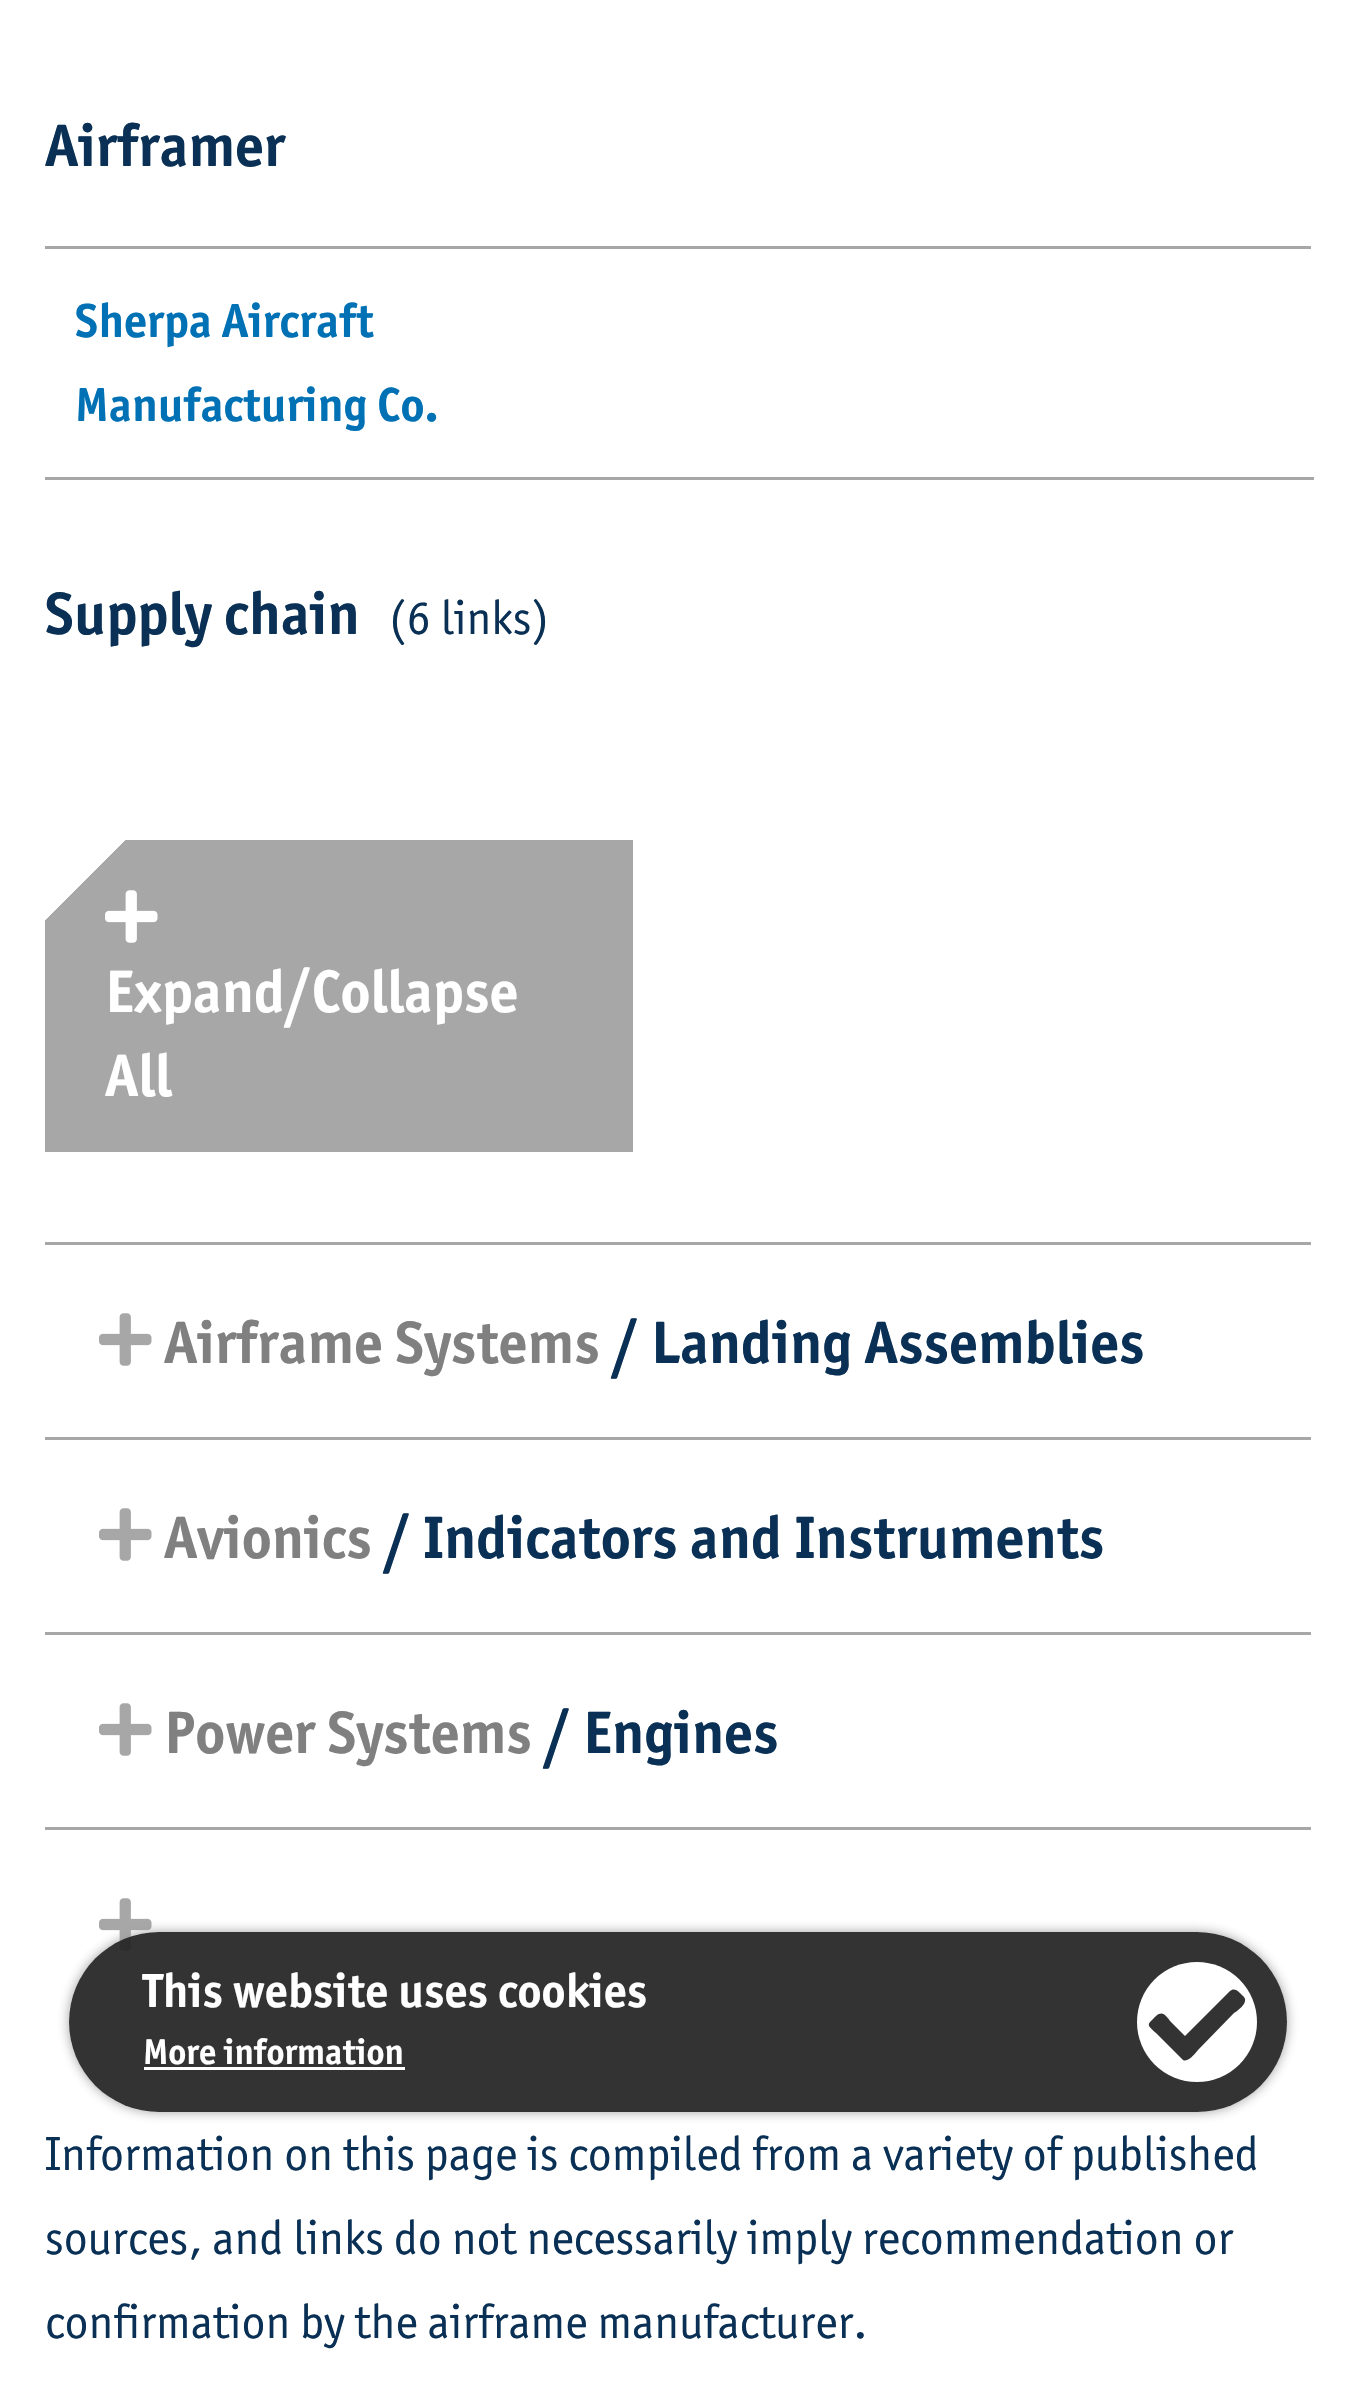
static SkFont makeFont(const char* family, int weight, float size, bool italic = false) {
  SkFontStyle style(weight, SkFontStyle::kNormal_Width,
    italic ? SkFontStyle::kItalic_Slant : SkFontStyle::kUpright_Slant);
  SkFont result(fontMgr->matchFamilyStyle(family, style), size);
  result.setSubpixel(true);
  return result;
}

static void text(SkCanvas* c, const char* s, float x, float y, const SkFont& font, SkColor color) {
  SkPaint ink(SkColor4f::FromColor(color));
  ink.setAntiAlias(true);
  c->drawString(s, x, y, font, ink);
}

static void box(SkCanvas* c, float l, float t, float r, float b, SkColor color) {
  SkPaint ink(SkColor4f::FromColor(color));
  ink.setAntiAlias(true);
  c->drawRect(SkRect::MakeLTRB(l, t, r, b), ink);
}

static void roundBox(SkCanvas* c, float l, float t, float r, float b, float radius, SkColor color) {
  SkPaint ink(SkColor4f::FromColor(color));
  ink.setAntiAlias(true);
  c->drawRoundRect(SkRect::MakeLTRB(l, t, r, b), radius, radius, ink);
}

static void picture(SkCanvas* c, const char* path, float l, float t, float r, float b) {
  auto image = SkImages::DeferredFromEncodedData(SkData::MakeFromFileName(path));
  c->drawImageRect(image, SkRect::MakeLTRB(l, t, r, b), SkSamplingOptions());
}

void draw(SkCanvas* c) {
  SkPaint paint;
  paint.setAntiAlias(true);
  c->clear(0xffffffff);
  SkFont face1 = makeFont("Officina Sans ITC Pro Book", 700, 60);
  text(c, "Airframer", 45, 166, face1, 0xff0a3155);
  box(c, 45, 246, 1311, 249, 0xffa7a7a7);
  box(c, 45, 477, 1314, 480, 0xffa7a7a7);
  SkFont face2 = makeFont("Officina Sans ITC Pro Book", 700, 48);
  text(c, "Sherpa Aircraft", 75, 337, face2, 0xff0071b4);
  text(c, "Manufacturing Co.", 75, 421, face2, 0xff0071b4);
  text(c, "Supply chain", 45, 634, face1, 0xff0a3155);
  SkFont face3 = makeFont("Officina Sans ITC Pro Book", 400, 48);
  text(c, "(6 links)", 389, 634, face3, 0xff0a3155);
  {
    const SkColor colors[] = {0xffffffff, 0xffa7a7a7};
    const float stops[] = {0.09f, 0.09f};
    const SkPoint ends[] = {{114, 771}, {564, 1221}};
    paint.setShader(SkGradientShader::MakeLinear(ends, colors, stops, 2, SkTileMode::kClamp));
    paint.setAlpha(255);
  }
  c->drawRect(SkRect::MakeLTRB(45, 840, 633, 1152), paint);
  picture(c, "img_01.png", 105, 890, 158, 943);
  text(c, "Expand/Collapse", 105, 1012, face1, 0xffffffff);
  text(c, "All", 105, 1096, face1, 0xffffffff);
  box(c, 45, 1242, 1311, 1245, 0xffa7a7a7);
  picture(c, "img_02.png", 99, 1313, 152, 1366);
  text(c, "Airframe Systems", 164, 1363, face1, 0xff808080);
  text(c, "/ Landing Assemblies", 612, 1363, face1, 0xff0a3155);
  box(c, 45, 1437, 1311, 1440, 0xffa7a7a7);
  picture(c, "img_02.png", 99, 1508, 152, 1561);
  text(c, "Avionics", 164, 1558, face1, 0xff808080);
  text(c, "/ Indicators and Instruments", 384, 1558, face1, 0xff0a3155);
  box(c, 45, 1632, 1311, 1635, 0xffa7a7a7);
  picture(c, "img_02.png", 99, 1703, 152, 1756);
  text(c, "Power Systems", 164, 1753, face1, 0xff808080);
  text(c, "/ Engines", 544, 1753, face1, 0xff0a3155);
  box(c, 45, 1827, 1311, 1830, 0xffa7a7a7);
  picture(c, "img_02.png", 99, 1898, 152, 1951);
  text(c, "Information on this page is compiled from a variety of published", 45, 2170, face3, 0xff0a3155);
  text(c, "sources, and links do not necessarily imply recommendation or", 45, 2254, face3, 0xff0a3155);
  text(c, "confirmation by the airframe manufacturer.", 45, 2338, face3, 0xff0a3155);
  c->save();
  c->clipPath(SkPathBuilder(SkPathFillType::kEvenOdd).moveTo(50, 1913).lineTo(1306, 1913).lineTo(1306, 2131).lineTo(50, 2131).close().moveTo(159, 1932).lineTo(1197, 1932).cubicTo(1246.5f, 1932, 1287, 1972.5f, 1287, 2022).cubicTo(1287, 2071.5f, 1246.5f, 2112, 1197, 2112).lineTo(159, 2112).cubicTo(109.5f, 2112, 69, 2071.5f, 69, 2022).cubicTo(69, 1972.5f, 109.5f, 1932, 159, 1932).close().detach(), true);
  paint.setShader(nullptr);
  paint.setColor(0xeb999999);
  paint.setMaskFilter(SkMaskFilter::MakeBlur(kNormal_SkBlurStyle, 6));
  c->drawRoundRect(SkRect::MakeLTRB(69, 1932, 1287, 2112), 90, 90, paint);
  paint.setMaskFilter(nullptr);
  c->restore();
  roundBox(c, 69, 1932, 1287, 2112, 90, 0xeb222222);
  text(c, "This website uses cookies", 143, 2007, face2, 0xffffffff);
  SkFont face4 = makeFont("Officina Sans ITC Pro Book", 700, 36);
  text(c, "More information", 143, 2064, face4, 0xffffffff);
  box(c, 144, 2067, 405, 2070, 0xffffffff);
  paint.setColor(0xffffffff);
  c->drawCircle(1197, 2022, 60, paint);
  paint.setColor(0xff333333);
  c->drawPath(SkPathBuilder().moveTo(1182, 2059).lineTo(1156, 2033).cubicTo(1146, 2024, 1147, 2025, 1156, 2016).cubicTo(1163, 2010, 1166, 2016, 1171, 2022).lineTo(1185, 2036).lineTo(1230, 1991).cubicTo(1235, 1986, 1241, 1994, 1244, 1997).cubicTo(1249, 2003, 1236, 2012, 1234, 2013).lineTo(1198, 2050).cubicTo(1197, 2051, 1187, 2065, 1182, 2059).close().detach(), paint);
}
